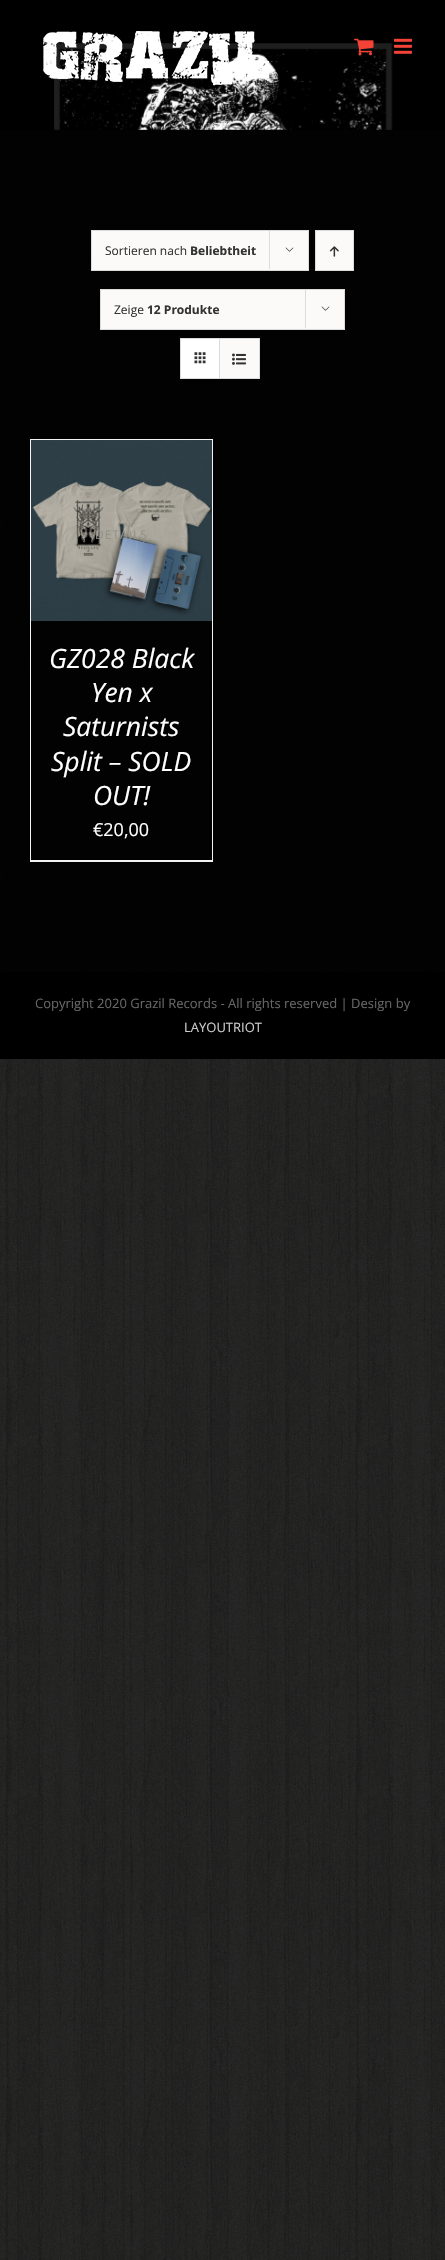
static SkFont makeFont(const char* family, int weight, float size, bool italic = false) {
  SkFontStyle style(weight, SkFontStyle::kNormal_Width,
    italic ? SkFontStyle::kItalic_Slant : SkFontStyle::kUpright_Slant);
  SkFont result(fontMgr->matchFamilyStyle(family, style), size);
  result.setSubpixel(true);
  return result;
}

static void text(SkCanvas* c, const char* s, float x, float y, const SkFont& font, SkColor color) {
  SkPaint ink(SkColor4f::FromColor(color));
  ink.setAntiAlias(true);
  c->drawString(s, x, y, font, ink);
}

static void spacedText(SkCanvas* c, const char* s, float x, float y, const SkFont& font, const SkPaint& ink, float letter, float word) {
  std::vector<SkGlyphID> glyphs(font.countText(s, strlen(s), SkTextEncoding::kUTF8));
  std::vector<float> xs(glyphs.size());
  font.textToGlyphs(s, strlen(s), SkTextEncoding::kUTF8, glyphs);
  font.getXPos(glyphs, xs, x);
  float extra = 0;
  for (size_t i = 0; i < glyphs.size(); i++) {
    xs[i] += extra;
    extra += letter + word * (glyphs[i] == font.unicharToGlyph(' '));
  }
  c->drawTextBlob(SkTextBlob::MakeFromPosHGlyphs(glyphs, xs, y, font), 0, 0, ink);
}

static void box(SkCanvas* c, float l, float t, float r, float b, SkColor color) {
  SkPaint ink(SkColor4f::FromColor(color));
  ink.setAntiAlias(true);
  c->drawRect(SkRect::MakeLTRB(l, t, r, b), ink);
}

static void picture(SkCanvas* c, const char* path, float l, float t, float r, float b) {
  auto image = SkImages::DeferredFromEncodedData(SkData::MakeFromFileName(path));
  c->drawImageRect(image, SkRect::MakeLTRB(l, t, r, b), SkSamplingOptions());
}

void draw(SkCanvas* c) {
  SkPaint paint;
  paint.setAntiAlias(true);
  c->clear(0xffffffff);
  picture(c, "img_01.png", 0, 1059, 445, 2260);
  picture(c, "img_02.png", 0, 130, 445, 972);
  box(c, 0, 0, 445, 130, 0xff000000);
  picture(c, "img_03.png", 54, 43, 393, 130);
  picture(c, "img_04.png", 43, 31, 269, 86);
  picture(c, "img_05.png", 354, 38, 374, 56);
  picture(c, "img_06.png", 394, 38, 412, 54);
  box(c, 0, 130, 445, 972, 0xd1000000);
  paint.setColor(0xfffbfaf9);
  c->drawRect(SkRect::MakeLTRB(91.5f, 230.5f, 308.5f, 270.5f), paint);
  paint.setStyle(SkPaint::kStroke_Style);
  paint.setStrokeWidth(1);
  paint.setColor(0xffdbdbdb);
  c->drawRect(SkRect::MakeLTRB(91.5f, 230.5f, 308.5f, 270.5f), paint);
  SkFont face1 = makeFont("Open Sans", 400, 12);
  text(c, "Sortieren nach", 105, 255, face1, 0xff333333);
  SkFont face2 = makeFont("Open Sans", 700, 12);
  text(c, "Beliebtheit", 190, 255, face2, 0xff333333);
  box(c, 269, 230, 270, 269, 0xffdbdbdb);
  picture(c, "img_07.png", 285, 247, 294, 252);
  paint.setStyle(SkPaint::kFill_Style);
  paint.setColor(0xfffbfaf9);
  c->drawRect(SkRect::MakeLTRB(315.5f, 230.5f, 353.5f, 270.5f), paint);
  paint.setStyle(SkPaint::kStroke_Style);
  paint.setColor(0xffdbdbdb);
  c->drawRect(SkRect::MakeLTRB(315.5f, 230.5f, 353.5f, 270.5f), paint);
  picture(c, "img_08.png", 329, 246, 339, 257);
  paint.setStyle(SkPaint::kFill_Style);
  paint.setColor(0xfffbfaf9);
  c->drawRect(SkRect::MakeLTRB(100.5f, 289.5f, 344.5f, 329.5f), paint);
  paint.setStyle(SkPaint::kStroke_Style);
  paint.setColor(0xffdbdbdb);
  c->drawRect(SkRect::MakeLTRB(100.5f, 289.5f, 344.5f, 329.5f), paint);
  text(c, "Zeige", 114, 314, face1, 0xff333333);
  text(c, "12 Produkte", 147, 314, face2, 0xff333333);
  box(c, 305, 289, 306, 328, 0xffdbdbdb);
  picture(c, "img_07.png", 321, 306, 330, 311);
  c->drawRect(SkRect::MakeLTRB(180.5f, 338.5f, 259.5f, 378.5f), paint);
  box(c, 181, 339, 219, 378, 0xffffffff);
  box(c, 219, 339, 220, 378, 0xffdbdbdb);
  picture(c, "img_09.png", 194, 352, 206, 364);
  box(c, 220, 339, 259, 378, 0xfffbfaf9);
  picture(c, "img_10.png", 232, 353, 246, 365);
  box(c, 30, 439, 213, 440, 0xfff2f3f5);
  box(c, 212, 439, 213, 862, 0xfff2f3f5);
  box(c, 30, 860, 213, 862, 0xfff2f3f5);
  box(c, 30, 439, 31, 862, 0xfff2f3f5);
  picture(c, "img_11.png", 31, 440, 212, 621);
  paint.setStyle(SkPaint::kFill_Style);
  paint.setColor(0xff939189);
  spacedText(c, "DETAILS", 95, 539, face1, paint, 1, 0);
  SkFont face3 = makeFont("Open Sans", 400, 26.5f, true);
  text(c, "GZ028 Black", 49, 668, face3, 0xffffffff);
  text(c, "Yen x", 91, 702, face3, 0xffffffff);
  text(c, "Saturnists", 63, 736, face3, 0xffffffff);
  text(c, "Split – SOLD", 51, 771, face3, 0xffffffff);
  text(c, "OUT!", 93, 805, face3, 0xffffffff);
  SkFont face4 = makeFont("Open Sans", 400, 18);
  text(c, "€20,00", 93, 836, face4, 0xffffffff);
  box(c, 0, 972, 445, 1059, 0xff000000);
  SkFont face5 = makeFont("Open Sans", 400, 13);
  text(c, "Copyright 2020 Grazil Records - All rights reserved | Design by", 35, 1008, face5, 0xff666666);
  text(c, "LAYOUTRIOT", 184, 1032, face5, 0xffcccccc);
}
